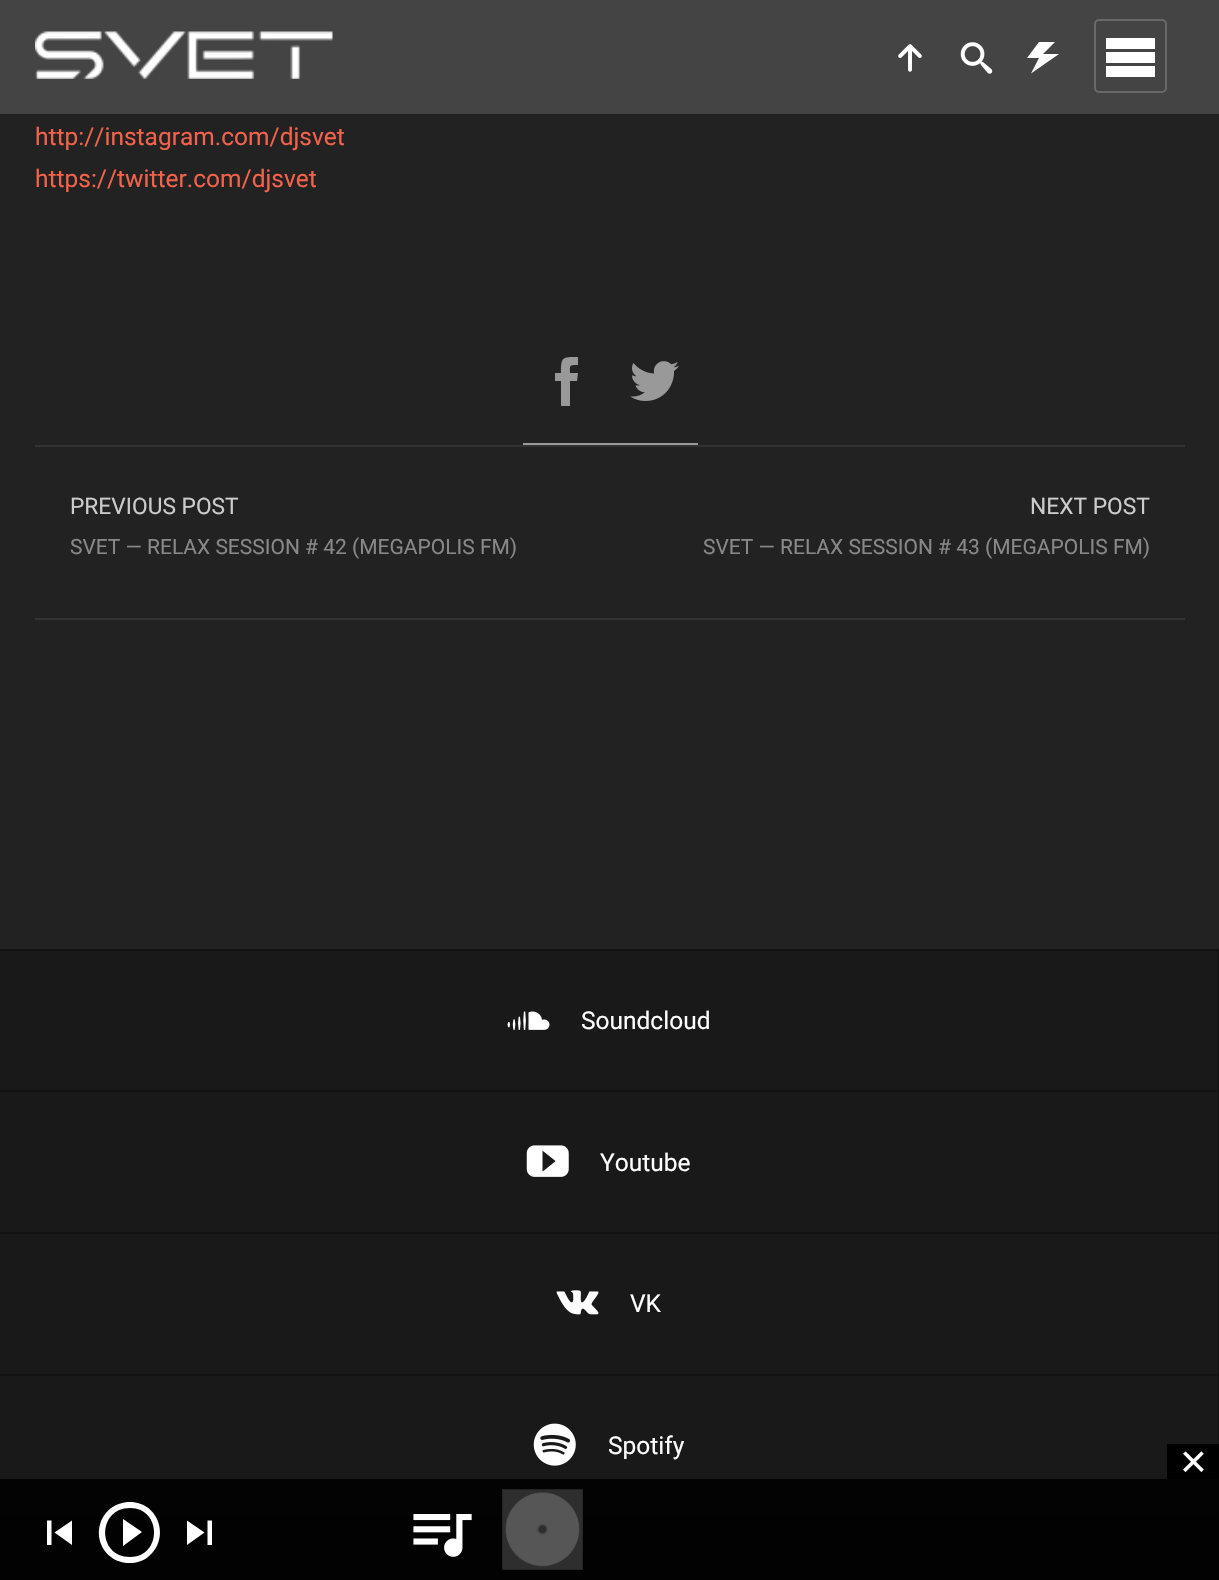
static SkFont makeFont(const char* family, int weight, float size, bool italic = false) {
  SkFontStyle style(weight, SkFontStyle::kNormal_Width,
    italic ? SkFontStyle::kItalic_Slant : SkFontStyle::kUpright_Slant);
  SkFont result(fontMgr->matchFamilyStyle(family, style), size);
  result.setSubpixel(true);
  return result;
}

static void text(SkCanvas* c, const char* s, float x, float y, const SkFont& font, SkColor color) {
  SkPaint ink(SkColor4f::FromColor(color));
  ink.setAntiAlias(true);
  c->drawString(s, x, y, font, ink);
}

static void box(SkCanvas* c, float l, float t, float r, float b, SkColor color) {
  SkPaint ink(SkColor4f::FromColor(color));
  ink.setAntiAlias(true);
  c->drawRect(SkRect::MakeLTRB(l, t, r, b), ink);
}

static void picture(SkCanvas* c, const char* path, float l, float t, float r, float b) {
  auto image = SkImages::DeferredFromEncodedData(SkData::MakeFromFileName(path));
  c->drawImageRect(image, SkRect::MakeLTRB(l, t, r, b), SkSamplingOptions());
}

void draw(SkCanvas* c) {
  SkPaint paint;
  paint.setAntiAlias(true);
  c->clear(0xff222222);
  box(c, 0, 0, 1219, 114, 0xff444444);
  picture(c, "img_01.png", 35, 31, 333, 79);
  picture(c, "img_02.png", 898, 44, 922, 72);
  picture(c, "img_03.png", 960, 42, 993, 74);
  paint.setColor(0xffffffff);
  c->drawPath(SkPathBuilder().moveTo(1039, 42).lineTo(1027, 58).lineTo(1039, 58).lineTo(1031, 73.5f).lineTo(1059, 54).lineTo(1043, 54).lineTo(1055, 42).close().detach(), paint);
  paint.setStyle(SkPaint::kStroke_Style);
  paint.setStrokeWidth(2);
  paint.setColor(0xff696969);
  c->drawRoundRect(SkRect::MakeLTRB(1095, 20, 1166, 92), 4, 4, paint);
  paint.setStyle(SkPaint::kFill_Style);
  paint.setColor(0xffffffff);
  c->drawPath(SkPathBuilder().moveTo(1106, 38).lineTo(1155, 38).lineTo(1155, 49).lineTo(1106, 49).close().moveTo(1106, 52).lineTo(1155, 52).lineTo(1155, 63).lineTo(1106, 63).close().moveTo(1106, 66).lineTo(1155, 66).lineTo(1155, 77).lineTo(1106, 77).close().detach(), paint);
  SkFont face1 = makeFont("Roboto", 400, 24.5f);
  text(c, "http://instagram.com/djsvet", 35, 145, face1, 0xfff4624a);
  text(c, "https://twitter.com/djsvet", 35, 187, face1, 0xfff4624a);
  box(c, 35, 445, 1185, 447, 0xff333333);
  box(c, 523, 443, 698, 445, 0xff999999);
  paint.setColor(0xff999999);
  c->drawPath(SkPathBuilder().moveTo(570, 406).lineTo(561, 406).lineTo(561, 381).lineTo(555, 381).lineTo(555, 373).lineTo(561, 373).cubicTo(561, 357, 562, 357, 578, 357).lineTo(578, 365).cubicTo(569, 365, 570, 365, 570, 373).lineTo(578, 373).lineTo(577, 381).lineTo(570, 381).close().detach(), paint);
  picture(c, "img_04.png", 630, 361, 679, 401);
  box(c, 35, 618, 1185, 620, 0xff333333);
  SkFont face2 = makeFont("Roboto", 400, 22.75f);
  text(c, "PREVIOUS POST", 70, 514, face2, 0xffcccccc);
  SkFont face3 = makeFont("Roboto", 400, 21);
  text(c, "SVET — RELAX SESSION # 42 (MEGAPOLIS FM)", 70, 554, face3, 0xff888888);
  text(c, "NEXT POST", 1030, 514, face2, 0xffcccccc);
  text(c, "SVET — RELAX SESSION # 43 (MEGAPOLIS FM)", 703, 554, face3, 0xff888888);
  box(c, 0, 951, 1219, 1517, 0xff191919);
  box(c, 0, 949, 1219, 951, 0xff121212);
  paint.setColor(0x4d000000);
  c->drawPath(SkPathBuilder().moveTo(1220, 950).lineTo(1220, 1092).lineTo(1218, 1090).lineTo(1218, 950).close().detach(), paint);
  c->drawPath(SkPathBuilder().moveTo(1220, 1092).lineTo(0, 1092).lineTo(0, 1090).lineTo(1218, 1090).close().detach(), paint);
  picture(c, "img_05.png", 507, 1011, 550, 1030);
  text(c, "Soundcloud", 581, 1029, face1, 0xffffffff);
  paint.setColor(0xff121212);
  c->drawPath(SkPathBuilder().moveTo(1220, 1092).lineTo(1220, 1234).lineTo(1218, 1232).lineTo(1218, 1092).close().detach(), paint);
  paint.setColor(0x4d000000);
  c->drawPath(SkPathBuilder().moveTo(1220, 1234).lineTo(0, 1234).lineTo(0, 1232).lineTo(1218, 1232).close().detach(), paint);
  picture(c, "img_06.png", 526, 1145, 569, 1177);
  text(c, "Youtube", 600, 1171, face1, 0xffffffff);
  paint.setColor(0xff121212);
  c->drawPath(SkPathBuilder().moveTo(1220, 1234).lineTo(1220, 1376).lineTo(1218, 1374).lineTo(1218, 1234).close().detach(), paint);
  paint.setColor(0x4d000000);
  c->drawPath(SkPathBuilder().moveTo(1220, 1376).lineTo(0, 1376).lineTo(0, 1374).lineTo(1218, 1374).close().detach(), paint);
  picture(c, "img_07.png", 556, 1290, 599, 1315);
  text(c, "VK", 630, 1312, face1, 0xffffffff);
  paint.setColor(0xff121212);
  c->drawPath(SkPathBuilder().moveTo(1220, 1376).lineTo(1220, 1517).lineTo(1218, 1516).lineTo(1218, 1376).close().detach(), paint);
  paint.setColor(0xff111111);
  c->drawPath(SkPathBuilder().moveTo(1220, 1517).lineTo(0, 1517).lineTo(0, 1516).lineTo(1218, 1516).close().detach(), paint);
  picture(c, "img_08.png", 533, 1423, 576, 1466);
  text(c, "Spotify", 608, 1454, face1, 0xffffffff);
  box(c, 0, 1517, 1219, 1580, 0xff111111);
  box(c, 1167, 1444, 1219, 1479, 0xff000000);
  SkFont face4 = makeFont("Liberation Sans", 400, 46);
  text(c, "×", 1180, 1477, face4, 0xffffffff);
  box(c, 0, 1479, 1219, 1580, 0xe6000000);
  paint.setColor(0xffffffff);
  c->drawPath(SkPathBuilder().moveTo(47, 1520.5f).lineTo(51.5f, 1520.5f).lineTo(51.5f, 1545).lineTo(47, 1545).close().moveTo(54.5f, 1532.5f).lineTo(72, 1545).lineTo(72, 1520.5f).close().detach(), paint);
  c->drawPath(SkPathBuilder().moveTo(123, 1546).lineTo(142, 1532).lineTo(123, 1519).close().moveTo(130, 1502).cubicTo(100, 1502, 88, 1539, 111, 1557).cubicTo(116, 1561, 123, 1563, 130, 1563).cubicTo(136, 1563, 143, 1561, 148, 1557).cubicTo(171, 1539, 159, 1502, 130, 1502).close().moveTo(130, 1557).cubicTo(97, 1557, 97, 1508, 130, 1508).cubicTo(162, 1508, 162, 1557, 130, 1557).close().detach(), paint);
  c->drawPath(SkPathBuilder().moveTo(187, 1545).lineTo(204.5f, 1532.5f).lineTo(187, 1520.5f).close().moveTo(207.5f, 1520.5f).lineTo(207.5f, 1545).lineTo(212, 1545).lineTo(212, 1520.5f).close().detach(), paint);
  picture(c, "img_09.png", 413, 1514, 472, 1557);
  picture(c, "img_10.png", 502, 1489, 583, 1570);
}
